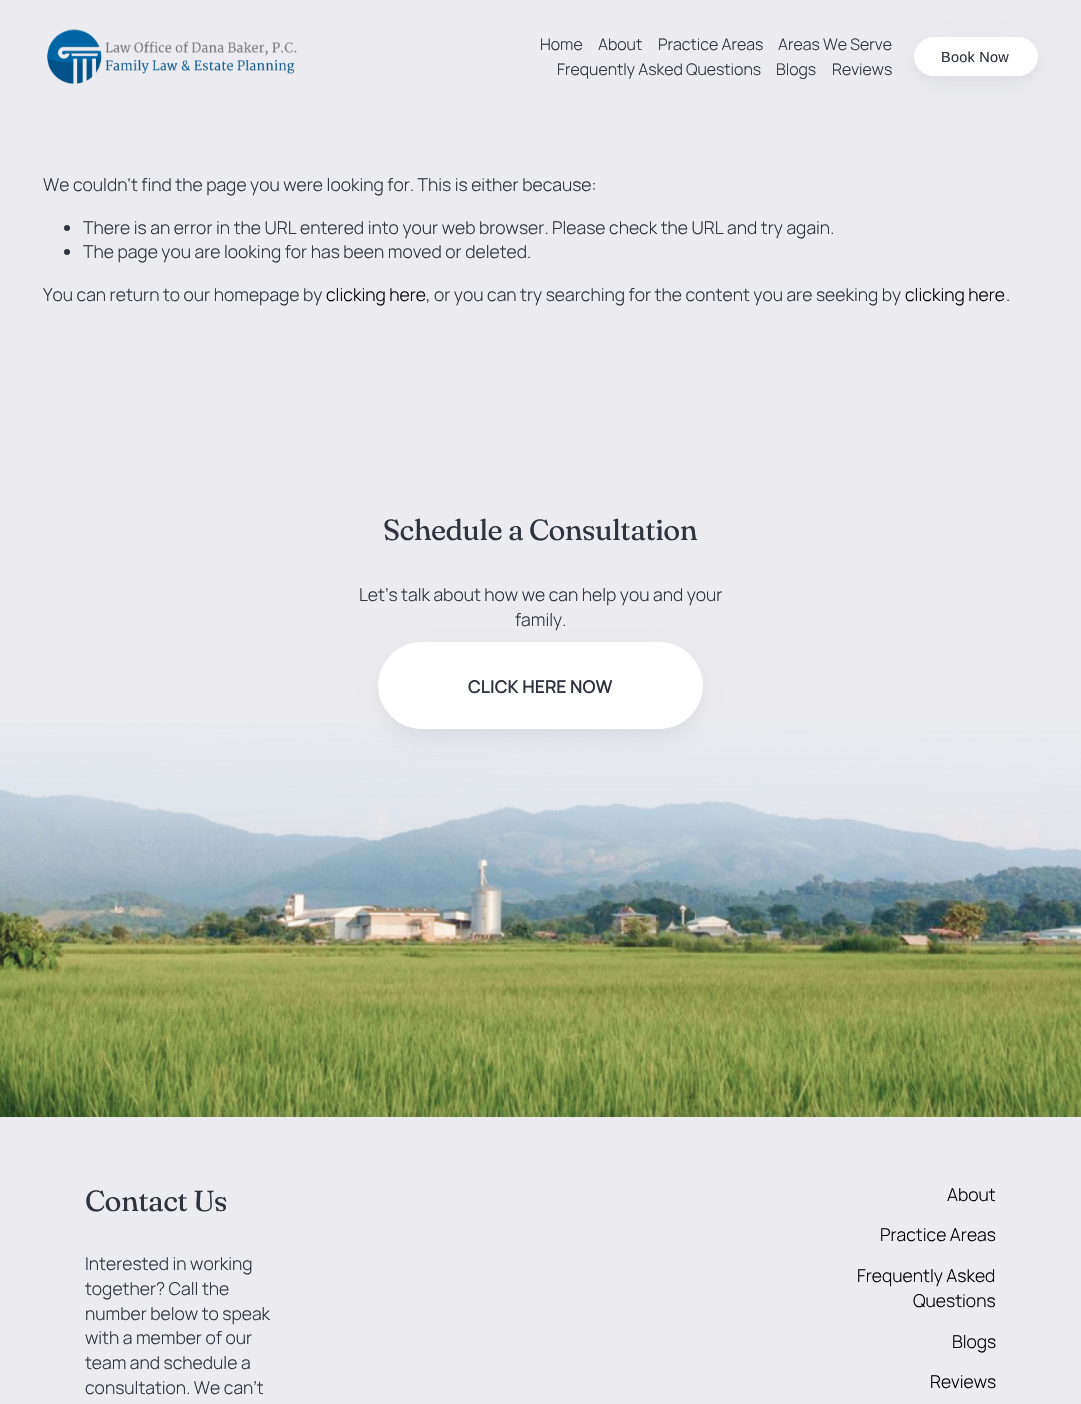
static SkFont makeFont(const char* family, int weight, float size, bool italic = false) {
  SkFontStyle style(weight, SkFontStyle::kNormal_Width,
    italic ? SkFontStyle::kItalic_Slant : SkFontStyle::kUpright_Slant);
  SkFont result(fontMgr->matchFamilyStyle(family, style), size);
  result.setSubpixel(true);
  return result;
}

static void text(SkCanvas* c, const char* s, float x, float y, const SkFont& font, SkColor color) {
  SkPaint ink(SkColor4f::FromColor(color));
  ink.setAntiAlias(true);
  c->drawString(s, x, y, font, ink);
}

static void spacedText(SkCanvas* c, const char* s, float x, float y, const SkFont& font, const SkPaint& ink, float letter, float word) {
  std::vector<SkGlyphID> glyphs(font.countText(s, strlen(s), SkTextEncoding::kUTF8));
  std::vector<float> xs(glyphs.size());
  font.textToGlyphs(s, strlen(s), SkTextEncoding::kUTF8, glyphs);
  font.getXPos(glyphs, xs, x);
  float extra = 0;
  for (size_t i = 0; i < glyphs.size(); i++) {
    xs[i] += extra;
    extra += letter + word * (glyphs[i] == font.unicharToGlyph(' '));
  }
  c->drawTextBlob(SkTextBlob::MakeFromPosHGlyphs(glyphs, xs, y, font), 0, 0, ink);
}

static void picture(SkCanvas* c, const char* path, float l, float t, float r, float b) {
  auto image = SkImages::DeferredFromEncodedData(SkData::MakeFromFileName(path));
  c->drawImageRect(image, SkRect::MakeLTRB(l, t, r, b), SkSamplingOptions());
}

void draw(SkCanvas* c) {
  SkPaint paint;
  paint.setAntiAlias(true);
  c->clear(0xffececf0);
  picture(c, "img_01.png", 47, 29, 297, 84);
  SkFont face1 = makeFont("Manrope", 300, 16);
  text(c, "Home", 540, 50, face1, 0xff2f333d);
  text(c, "About", 598, 50, face1, 0xff2f333d);
  text(c, "Practice Areas", 658, 50, face1, 0xff2f333d);
  text(c, "Areas We Serve", 778, 50, face1, 0xff2f333d);
  text(c, "Frequently Asked Questions", 557, 75, face1, 0xff2f333d);
  text(c, "Blogs", 776, 75, face1, 0xff2f333d);
  text(c, "Reviews", 832, 75, face1, 0xff2f333d);
  paint.setColor(0x33959da5);
  paint.setMaskFilter(SkMaskFilter::MakeBlur(kNormal_SkBlurStyle, 12));
  c->drawRoundRect(SkRect::MakeLTRB(914, 45, 1038, 84), 19.5f, 19.5f, paint);
  paint.setMaskFilter(nullptr);
  paint.setColor(0xffffffff);
  c->drawRoundRect(SkRect::MakeLTRB(914.5f, 37.5f, 1037.5f, 75.5f), 19, 19, paint);
  paint.setStyle(SkPaint::kStroke_Style);
  paint.setStrokeWidth(1);
  c->drawRoundRect(SkRect::MakeLTRB(914.5f, 37.5f, 1037.5f, 75.5f), 19, 19, paint);
  SkFont face2 = makeFont("Liberation Sans", 400, 14.5f);
  paint.setStyle(SkPaint::kFill_Style);
  paint.setColor(0xff2f333d);
  spacedText(c, "Book Now", 941, 62, face2, paint, 0.25f, 0);
  SkFont face3 = makeFont("Manrope", 300, 17.6f);
  text(c, "We couldn't find the page you were looking for. This is either because:", 43, 191, face3, 0xff2f333d);
  c->drawCircle(67, 228, 3, paint);
  text(c, "There is an error in the URL entered into your web browser. Please check the URL and try again.", 83, 234, face3, 0xff2f333d);
  c->drawCircle(67, 252, 3, paint);
  text(c, "The page you are looking for has been moved or deleted.", 83, 258, face3, 0xff2f333d);
  text(c, "You can return to our homepage by", 43, 301, face3, 0xff2f333d);
  text(c, "clicking here", 326, 301, face3, 0xff000000);
  text(c, ", or you can try searching for the content you are seeking by", 426, 301, face3, 0xff2f333d);
  text(c, "clicking here", 905, 301, face3, 0xff000000);
  text(c, ".", 1006, 301, face3, 0xff2f333d);
  SkFont face4 = makeFont("Fraunces", 400, 29);
  spacedText(c, "Schedule a Consultation", 383, 540, face4, paint, -0.6f, 0);
  text(c, "Let’s talk about how we can help you and your", 359, 601, face3, 0xff2f333d);
  text(c, "family.", 515, 626, face3, 0xff2f333d);
  picture(c, "img_02.png", 0, 723, 1081, 1117);
  paint.setColor(0x33959da5);
  paint.setMaskFilter(SkMaskFilter::MakeBlur(kNormal_SkBlurStyle, 12));
  c->drawRoundRect(SkRect::MakeLTRB(378, 650, 703, 737), 43.5f, 43.5f, paint);
  paint.setMaskFilter(nullptr);
  paint.setColor(0xffffffff);
  c->drawRoundRect(SkRect::MakeLTRB(378.5f, 642.5f, 702.5f, 728.5f), 43, 43, paint);
  paint.setStyle(SkPaint::kStroke_Style);
  c->drawRoundRect(SkRect::MakeLTRB(378.5f, 642.5f, 702.5f, 728.5f), 43, 43, paint);
  SkFont face5 = makeFont("Manrope", 600, 17.6f);
  text(c, "CLICK HERE NOW", 468, 693, face5, 0xff2f333d);
  paint.setStyle(SkPaint::kFill_Style);
  paint.setColor(0xff2f333d);
  spacedText(c, "Contact Us", 85, 1211, face4, paint, -0.6f, 0);
  text(c, "About", 947, 1201, face3, 0xff000000);
  text(c, "Practice Areas", 880, 1241, face3, 0xff000000);
  text(c, "Frequently Asked", 857, 1282, face3, 0xff000000);
  text(c, "Questions", 913, 1307, face3, 0xff000000);
  text(c, "Blogs", 952, 1348, face3, 0xff000000);
  text(c, "Reviews", 930, 1388, face3, 0xff000000);
  text(c, "Interested in working", 85, 1270, face3, 0xff2f333d);
  text(c, "together? Call the", 85, 1295, face3, 0xff2f333d);
  text(c, "number below to speak", 85, 1320, face3, 0xff2f333d);
  text(c, "with a member of our", 85, 1344, face3, 0xff2f333d);
  text(c, "team and schedule a", 85, 1369, face3, 0xff2f333d);
  text(c, "consultation. We can’t", 85, 1394, face3, 0xff2f333d);
}
